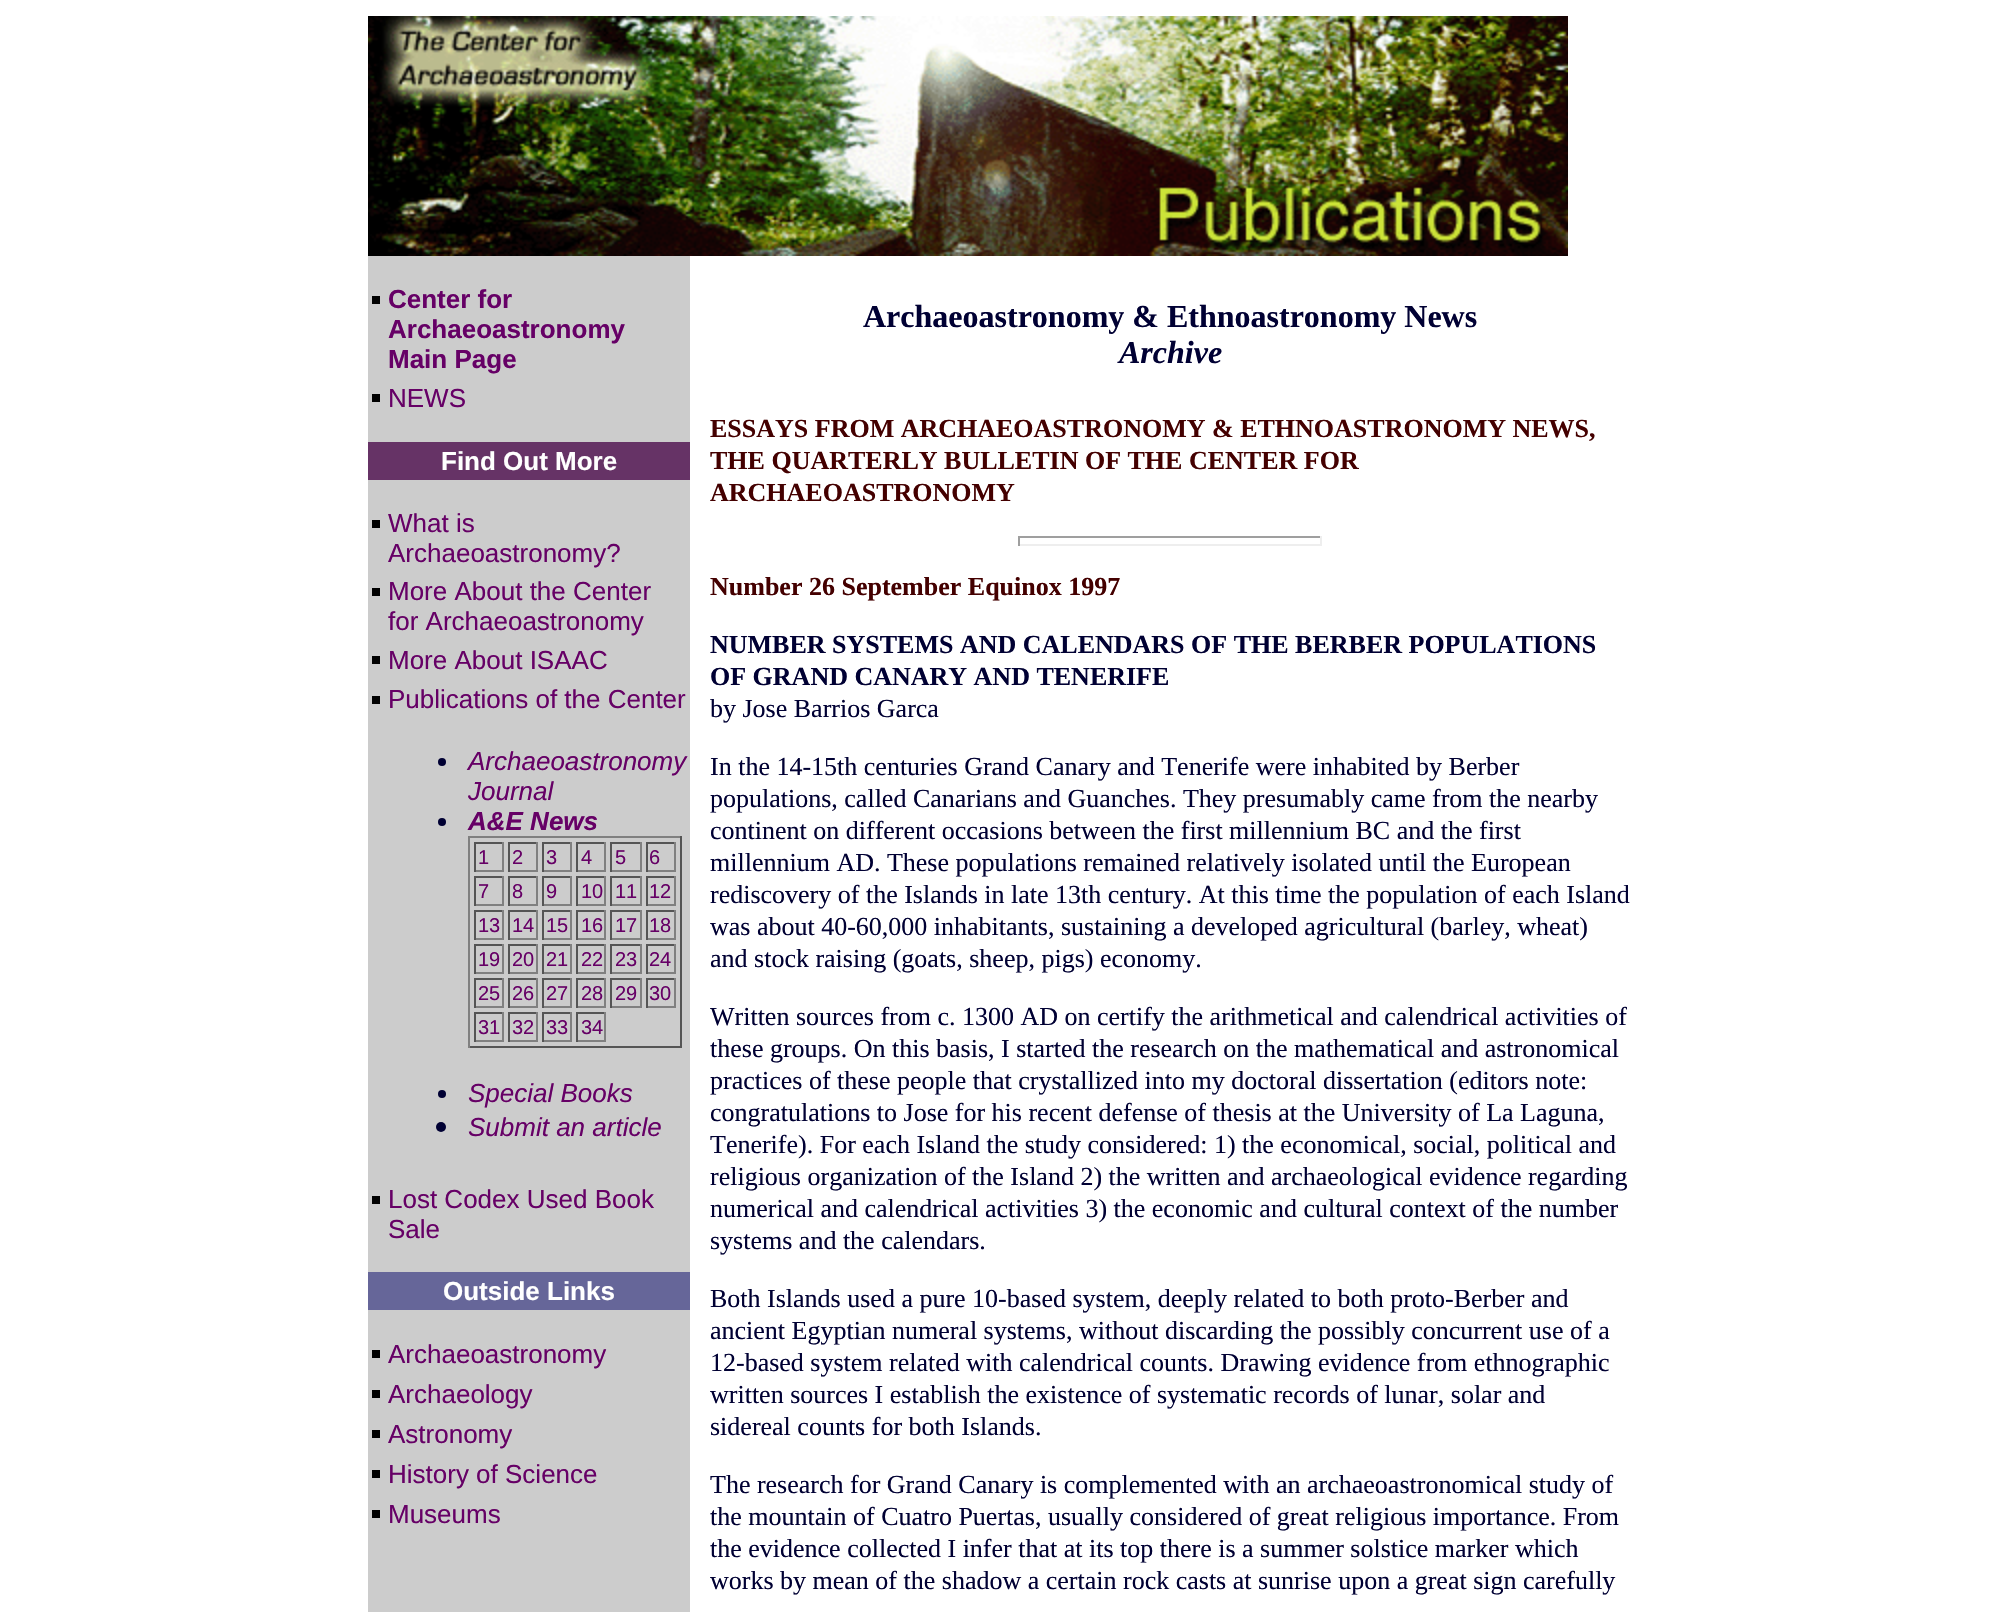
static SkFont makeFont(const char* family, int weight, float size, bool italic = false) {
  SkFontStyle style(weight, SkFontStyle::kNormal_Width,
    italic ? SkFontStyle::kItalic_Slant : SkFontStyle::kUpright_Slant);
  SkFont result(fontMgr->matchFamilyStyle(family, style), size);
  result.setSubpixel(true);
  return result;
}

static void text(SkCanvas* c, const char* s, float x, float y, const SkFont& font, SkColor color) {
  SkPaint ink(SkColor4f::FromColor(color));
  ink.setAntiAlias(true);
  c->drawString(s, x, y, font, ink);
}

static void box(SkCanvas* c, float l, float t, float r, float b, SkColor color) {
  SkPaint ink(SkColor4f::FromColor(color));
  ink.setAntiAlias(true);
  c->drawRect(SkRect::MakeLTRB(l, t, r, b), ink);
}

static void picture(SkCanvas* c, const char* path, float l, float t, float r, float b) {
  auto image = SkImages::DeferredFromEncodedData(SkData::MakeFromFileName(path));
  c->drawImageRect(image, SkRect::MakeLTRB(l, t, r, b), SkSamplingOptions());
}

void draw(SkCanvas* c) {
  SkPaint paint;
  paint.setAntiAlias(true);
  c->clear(0xffffffff);
  picture(c, "img_01.png", 368, 16, 1568, 256);
  box(c, 368, 256, 690, 1612, 0xffcccccc);
  box(c, 372, 296, 380, 304, 0xff000000);
  SkFont face1 = makeFont("Liberation Sans", 700, 26);
  text(c, "Center for", 388, 308, face1, 0xff660066);
  text(c, "Archaeoastronomy", 388, 338, face1, 0xff660066);
  text(c, "Main Page", 388, 368, face1, 0xff660066);
  box(c, 372, 394, 380, 402, 0xff000000);
  SkFont face2 = makeFont("Liberation Sans", 400, 26);
  text(c, "NEWS", 388, 407, face2, 0xff660066);
  box(c, 368, 442, 690, 480, 0xff663366);
  text(c, "Find Out More", 441, 470, face1, 0xffffffff);
  box(c, 372, 520, 380, 528, 0xff000000);
  text(c, "What is", 388, 532, face2, 0xff660066);
  text(c, "Archaeoastronomy?", 388, 562, face2, 0xff660066);
  box(c, 372, 588, 380, 596, 0xff000000);
  text(c, "More About the Center", 388, 600, face2, 0xff660066);
  text(c, "for Archaeoastronomy", 388, 630, face2, 0xff660066);
  box(c, 372, 656, 380, 664, 0xff000000);
  text(c, "More About ISAAC", 388, 669, face2, 0xff660066);
  box(c, 372, 696, 380, 704, 0xff000000);
  text(c, "Publications of the Center", 388, 708, face2, 0xff660066);
  paint.setColor(0xff000033);
  c->drawCircle(442, 762, 4, paint);
  SkFont face3 = makeFont("Liberation Sans", 400, 26, true);
  text(c, "Archaeoastronomy", 468, 770, face3, 0xff660066);
  text(c, "Journal", 468, 800, face3, 0xff660066);
  c->drawCircle(442, 822, 4, paint);
  SkFont face4 = makeFont("Liberation Sans", 700, 26, true);
  text(c, "A&E News", 468, 830, face4, 0xff660066);
  box(c, 468, 836, 682, 838, 0xff808080);
  box(c, 680, 836, 682, 1048, 0xff555555);
  box(c, 468, 1046, 682, 1048, 0xff555555);
  box(c, 468, 836, 470, 1048, 0xff808080);
  box(c, 474, 842, 504, 844, 0xff555555);
  box(c, 502, 842, 504, 872, 0xff808080);
  box(c, 474, 870, 504, 872, 0xff808080);
  box(c, 474, 842, 476, 872, 0xff555555);
  SkFont face5 = makeFont("Liberation Sans", 400, 20);
  text(c, "1", 478, 864, face5, 0xff660066);
  box(c, 508, 842, 538, 844, 0xff555555);
  box(c, 536, 842, 538, 872, 0xff808080);
  box(c, 508, 870, 538, 872, 0xff808080);
  box(c, 508, 842, 510, 872, 0xff555555);
  text(c, "2", 512, 864, face5, 0xff660066);
  box(c, 542, 842, 572, 844, 0xff555555);
  box(c, 570, 842, 572, 872, 0xff808080);
  box(c, 542, 870, 572, 872, 0xff808080);
  box(c, 542, 842, 544, 872, 0xff555555);
  text(c, "3", 546, 864, face5, 0xff660066);
  box(c, 576, 842, 606, 844, 0xff555555);
  box(c, 604, 842, 606, 872, 0xff808080);
  box(c, 576, 870, 606, 872, 0xff808080);
  box(c, 576, 842, 578, 872, 0xff555555);
  text(c, "4", 581, 864, face5, 0xff660066);
  box(c, 610, 842, 642, 844, 0xff555555);
  box(c, 640, 842, 642, 872, 0xff808080);
  box(c, 610, 870, 642, 872, 0xff808080);
  box(c, 610, 842, 612, 872, 0xff555555);
  text(c, "5", 615, 864, face5, 0xff660066);
  box(c, 646, 842, 676, 844, 0xff555555);
  box(c, 674, 842, 676, 872, 0xff808080);
  box(c, 646, 870, 676, 872, 0xff808080);
  box(c, 646, 842, 648, 872, 0xff555555);
  text(c, "6", 649, 864, face5, 0xff660066);
  box(c, 474, 876, 504, 878, 0xff555555);
  box(c, 502, 876, 504, 906, 0xff808080);
  box(c, 474, 904, 504, 906, 0xff808080);
  box(c, 474, 876, 476, 906, 0xff555555);
  text(c, "7", 478, 898, face5, 0xff660066);
  box(c, 508, 876, 538, 878, 0xff555555);
  box(c, 536, 876, 538, 906, 0xff808080);
  box(c, 508, 904, 538, 906, 0xff808080);
  box(c, 508, 876, 510, 906, 0xff555555);
  text(c, "8", 512, 898, face5, 0xff660066);
  box(c, 542, 876, 572, 878, 0xff555555);
  box(c, 570, 876, 572, 906, 0xff808080);
  box(c, 542, 904, 572, 906, 0xff808080);
  box(c, 542, 876, 544, 906, 0xff555555);
  text(c, "9", 546, 898, face5, 0xff660066);
  box(c, 576, 876, 606, 878, 0xff555555);
  box(c, 604, 876, 606, 906, 0xff808080);
  box(c, 576, 904, 606, 906, 0xff808080);
  box(c, 576, 876, 578, 906, 0xff555555);
  text(c, "10", 581, 898, face5, 0xff660066);
  box(c, 610, 876, 642, 878, 0xff555555);
  box(c, 640, 876, 642, 906, 0xff808080);
  box(c, 610, 904, 642, 906, 0xff808080);
  box(c, 610, 876, 612, 906, 0xff555555);
  text(c, "11", 615, 898, face5, 0xff660066);
  box(c, 646, 876, 676, 878, 0xff555555);
  box(c, 674, 876, 676, 906, 0xff808080);
  box(c, 646, 904, 676, 906, 0xff808080);
  box(c, 646, 876, 648, 906, 0xff555555);
  text(c, "12", 649, 898, face5, 0xff660066);
  box(c, 474, 910, 504, 912, 0xff555555);
  box(c, 502, 910, 504, 940, 0xff808080);
  box(c, 474, 938, 504, 940, 0xff808080);
  box(c, 474, 910, 476, 940, 0xff555555);
  text(c, "13", 478, 932, face5, 0xff660066);
  box(c, 508, 910, 538, 912, 0xff555555);
  box(c, 536, 910, 538, 940, 0xff808080);
  box(c, 508, 938, 538, 940, 0xff808080);
  box(c, 508, 910, 510, 940, 0xff555555);
  text(c, "14", 512, 932, face5, 0xff660066);
  box(c, 542, 910, 572, 912, 0xff555555);
  box(c, 570, 910, 572, 940, 0xff808080);
  box(c, 542, 938, 572, 940, 0xff808080);
  box(c, 542, 910, 544, 940, 0xff555555);
  text(c, "15", 546, 932, face5, 0xff660066);
  box(c, 576, 910, 606, 912, 0xff555555);
  box(c, 604, 910, 606, 940, 0xff808080);
  box(c, 576, 938, 606, 940, 0xff808080);
  box(c, 576, 910, 578, 940, 0xff555555);
  text(c, "16", 581, 932, face5, 0xff660066);
  box(c, 610, 910, 642, 912, 0xff555555);
  box(c, 640, 910, 642, 940, 0xff808080);
  box(c, 610, 938, 642, 940, 0xff808080);
  box(c, 610, 910, 612, 940, 0xff555555);
  text(c, "17", 615, 932, face5, 0xff660066);
  box(c, 646, 910, 676, 912, 0xff555555);
  box(c, 674, 910, 676, 940, 0xff808080);
  box(c, 646, 938, 676, 940, 0xff808080);
  box(c, 646, 910, 648, 940, 0xff555555);
  text(c, "18", 649, 932, face5, 0xff660066);
  box(c, 474, 944, 504, 946, 0xff555555);
  box(c, 502, 944, 504, 974, 0xff808080);
  box(c, 474, 972, 504, 974, 0xff808080);
  box(c, 474, 944, 476, 974, 0xff555555);
  text(c, "19", 478, 966, face5, 0xff660066);
  box(c, 508, 944, 538, 946, 0xff555555);
  box(c, 536, 944, 538, 974, 0xff808080);
  box(c, 508, 972, 538, 974, 0xff808080);
  box(c, 508, 944, 510, 974, 0xff555555);
  text(c, "20", 512, 966, face5, 0xff660066);
  box(c, 542, 944, 572, 946, 0xff555555);
  box(c, 570, 944, 572, 974, 0xff808080);
  box(c, 542, 972, 572, 974, 0xff808080);
  box(c, 542, 944, 544, 974, 0xff555555);
  text(c, "21", 546, 966, face5, 0xff660066);
  box(c, 576, 944, 606, 946, 0xff555555);
  box(c, 604, 944, 606, 974, 0xff808080);
  box(c, 576, 972, 606, 974, 0xff808080);
  box(c, 576, 944, 578, 974, 0xff555555);
  text(c, "22", 581, 966, face5, 0xff660066);
  box(c, 610, 944, 642, 946, 0xff555555);
  box(c, 640, 944, 642, 974, 0xff808080);
  box(c, 610, 972, 642, 974, 0xff808080);
  box(c, 610, 944, 612, 974, 0xff555555);
  text(c, "23", 615, 966, face5, 0xff660066);
  box(c, 646, 944, 676, 946, 0xff555555);
  box(c, 674, 944, 676, 974, 0xff808080);
  box(c, 646, 972, 676, 974, 0xff808080);
  box(c, 646, 944, 648, 974, 0xff555555);
  text(c, "24", 649, 966, face5, 0xff660066);
  box(c, 474, 978, 504, 980, 0xff555555);
  box(c, 502, 978, 504, 1008, 0xff808080);
  box(c, 474, 1006, 504, 1008, 0xff808080);
  box(c, 474, 978, 476, 1008, 0xff555555);
  text(c, "25", 478, 1000, face5, 0xff660066);
  box(c, 508, 978, 538, 980, 0xff555555);
  box(c, 536, 978, 538, 1008, 0xff808080);
  box(c, 508, 1006, 538, 1008, 0xff808080);
  box(c, 508, 978, 510, 1008, 0xff555555);
  text(c, "26", 512, 1000, face5, 0xff660066);
  box(c, 542, 978, 572, 980, 0xff555555);
  box(c, 570, 978, 572, 1008, 0xff808080);
  box(c, 542, 1006, 572, 1008, 0xff808080);
  box(c, 542, 978, 544, 1008, 0xff555555);
  text(c, "27", 546, 1000, face5, 0xff660066);
  box(c, 576, 978, 606, 980, 0xff555555);
  box(c, 604, 978, 606, 1008, 0xff808080);
  box(c, 576, 1006, 606, 1008, 0xff808080);
  box(c, 576, 978, 578, 1008, 0xff555555);
  text(c, "28", 581, 1000, face5, 0xff660066);
  box(c, 610, 978, 642, 980, 0xff555555);
  box(c, 640, 978, 642, 1008, 0xff808080);
  box(c, 610, 1006, 642, 1008, 0xff808080);
  box(c, 610, 978, 612, 1008, 0xff555555);
  text(c, "29", 615, 1000, face5, 0xff660066);
  box(c, 646, 978, 676, 980, 0xff555555);
  box(c, 674, 978, 676, 1008, 0xff808080);
  box(c, 646, 1006, 676, 1008, 0xff808080);
  box(c, 646, 978, 648, 1008, 0xff555555);
  text(c, "30", 649, 1000, face5, 0xff660066);
  box(c, 474, 1012, 504, 1014, 0xff555555);
  box(c, 502, 1012, 504, 1042, 0xff808080);
  box(c, 474, 1040, 504, 1042, 0xff808080);
  box(c, 474, 1012, 476, 1042, 0xff555555);
  text(c, "31", 478, 1034, face5, 0xff660066);
  box(c, 508, 1012, 538, 1014, 0xff555555);
  box(c, 536, 1012, 538, 1042, 0xff808080);
  box(c, 508, 1040, 538, 1042, 0xff808080);
  box(c, 508, 1012, 510, 1042, 0xff555555);
  text(c, "32", 512, 1034, face5, 0xff660066);
  box(c, 542, 1012, 572, 1014, 0xff555555);
  box(c, 570, 1012, 572, 1042, 0xff808080);
  box(c, 542, 1040, 572, 1042, 0xff808080);
  box(c, 542, 1012, 544, 1042, 0xff555555);
  text(c, "33", 546, 1034, face5, 0xff660066);
  box(c, 576, 1012, 606, 1014, 0xff555555);
  box(c, 604, 1012, 606, 1042, 0xff808080);
  box(c, 576, 1040, 606, 1042, 0xff808080);
  box(c, 576, 1012, 578, 1042, 0xff555555);
  text(c, "34", 581, 1034, face5, 0xff660066);
  c->drawCircle(442, 1094, 4, paint);
  text(c, "Special Books", 468, 1102, face3, 0xff660066);
  c->drawCircle(441, 1127, 5, paint);
  text(c, "Submit an article", 468, 1136, face3, 0xff660066);
  box(c, 372, 1196, 380, 1204, 0xff000000);
  text(c, "Lost Codex Used Book", 388, 1208, face2, 0xff660066);
  text(c, "Sale", 388, 1238, face2, 0xff660066);
  box(c, 368, 1272, 690, 1310, 0xff666699);
  text(c, "Outside Links", 443, 1300, face1, 0xffffffff);
  box(c, 372, 1350, 380, 1358, 0xff000000);
  text(c, "Archaeoastronomy", 388, 1363, face2, 0xff660066);
  box(c, 372, 1390, 380, 1398, 0xff000000);
  text(c, "Archaeology", 388, 1403, face2, 0xff660066);
  box(c, 372, 1430, 380, 1438, 0xff000000);
  text(c, "Astronomy", 388, 1443, face2, 0xff660066);
  box(c, 372, 1470, 380, 1478, 0xff000000);
  text(c, "History of Science", 388, 1483, face2, 0xff660066);
  box(c, 372, 1510, 380, 1518, 0xff000000);
  text(c, "Museums", 388, 1523, face2, 0xff660066);
  SkFont face6 = makeFont("Liberation Serif", 700, 32);
  text(c, "Archaeoastronomy & Ethnoastronomy News", 863, 327, face6, 0xff000033);
  SkFont face7 = makeFont("Liberation Serif", 700, 32, true);
  text(c, "Archive", 1119, 363, face7, 0xff000033);
  SkFont face8 = makeFont("Liberation Serif", 700, 26);
  text(c, "ESSAYS FROM ARCHAEOASTRONOMY & ETHNOASTRONOMY NEWS,", 710, 437, face8, 0xff440000);
  text(c, "THE QUARTERLY BULLETIN OF THE CENTER FOR", 710, 469, face8, 0xff440000);
  text(c, "ARCHAEOASTRONOMY", 710, 501, face8, 0xff440000);
  box(c, 1018, 536, 1322, 538, 0xff9f9f9f);
  box(c, 1320, 536, 1322, 546, 0xffeeeeee);
  box(c, 1018, 544, 1322, 546, 0xffeeeeee);
  box(c, 1018, 536, 1020, 546, 0xff9f9f9f);
  text(c, "Number 26 September Equinox 1997", 710, 595, face8, 0xff440000);
  text(c, "NUMBER SYSTEMS AND CALENDARS OF THE BERBER POPULATIONS", 710, 653, face8, 0xff000033);
  text(c, "OF GRAND CANARY AND TENERIFE", 710, 685, face8, 0xff000033);
  SkFont face9 = makeFont("Liberation Serif", 400, 26);
  text(c, "by Jose Barrios Garca", 710, 717, face9, 0xff000033);
  text(c, "In the 14-15th centuries Grand Canary and Tenerife were inhabited by Berber", 710, 775, face9, 0xff000033);
  text(c, "populations, called Canarians and Guanches. They presumably came from the nearby", 710, 807, face9, 0xff000033);
  text(c, "continent on different occasions between the first millennium BC and the first", 710, 839, face9, 0xff000033);
  text(c, "millennium AD. These populations remained relatively isolated until the European", 710, 871, face9, 0xff000033);
  text(c, "rediscovery of the Islands in late 13th century. At this time the population of each Island", 710, 903, face9, 0xff000033);
  text(c, "was about 40-60,000 inhabitants, sustaining a developed agricultural (barley, wheat)", 710, 935, face9, 0xff000033);
  text(c, "and stock raising (goats, sheep, pigs) economy.", 710, 967, face9, 0xff000033);
  text(c, "Written sources from c. 1300 AD on certify the arithmetical and calendrical activities of", 710, 1025, face9, 0xff000033);
  text(c, "these groups. On this basis, I started the research on the mathematical and astronomical", 710, 1057, face9, 0xff000033);
  text(c, "practices of these people that crystallized into my doctoral dissertation (editors note:", 710, 1089, face9, 0xff000033);
  text(c, "congratulations to Jose for his recent defense of thesis at the University of La Laguna,", 710, 1121, face9, 0xff000033);
  text(c, "Tenerife). For each Island the study considered: 1) the economical, social, political and", 710, 1153, face9, 0xff000033);
  text(c, "religious organization of the Island 2) the written and archaeological evidence regarding", 710, 1185, face9, 0xff000033);
  text(c, "numerical and calendrical activities 3) the economic and cultural context of the number", 710, 1217, face9, 0xff000033);
  text(c, "systems and the calendars.", 710, 1249, face9, 0xff000033);
  text(c, "Both Islands used a pure 10-based system, deeply related to both proto-Berber and", 710, 1307, face9, 0xff000033);
  text(c, "ancient Egyptian numeral systems, without discarding the possibly concurrent use of a", 710, 1339, face9, 0xff000033);
  text(c, "12-based system related with calendrical counts. Drawing evidence from ethnographic", 710, 1371, face9, 0xff000033);
  text(c, "written sources I establish the existence of systematic records of lunar, solar and", 710, 1403, face9, 0xff000033);
  text(c, "sidereal counts for both Islands.", 710, 1435, face9, 0xff000033);
  text(c, "The research for Grand Canary is complemented with an archaeoastronomical study of", 710, 1493, face9, 0xff000033);
  text(c, "the mountain of Cuatro Puertas, usually considered of great religious importance. From", 710, 1525, face9, 0xff000033);
  text(c, "the evidence collected I infer that at its top there is a summer solstice marker which", 710, 1557, face9, 0xff000033);
  text(c, "works by mean of the shadow a certain rock casts at sunrise upon a great sign carefully", 710, 1589, face9, 0xff000033);
}
